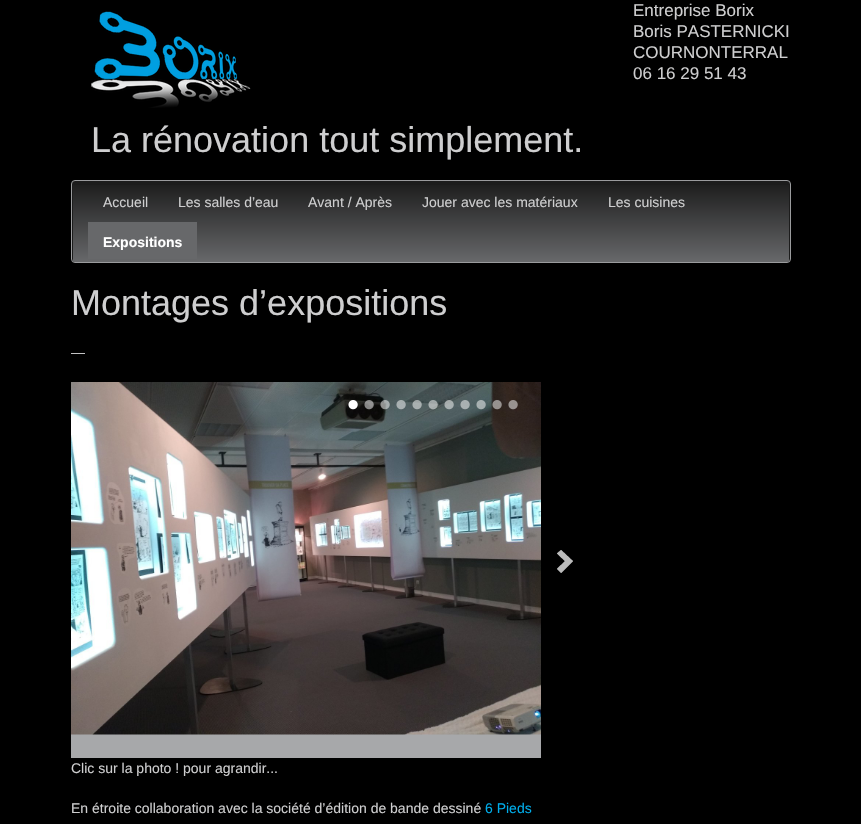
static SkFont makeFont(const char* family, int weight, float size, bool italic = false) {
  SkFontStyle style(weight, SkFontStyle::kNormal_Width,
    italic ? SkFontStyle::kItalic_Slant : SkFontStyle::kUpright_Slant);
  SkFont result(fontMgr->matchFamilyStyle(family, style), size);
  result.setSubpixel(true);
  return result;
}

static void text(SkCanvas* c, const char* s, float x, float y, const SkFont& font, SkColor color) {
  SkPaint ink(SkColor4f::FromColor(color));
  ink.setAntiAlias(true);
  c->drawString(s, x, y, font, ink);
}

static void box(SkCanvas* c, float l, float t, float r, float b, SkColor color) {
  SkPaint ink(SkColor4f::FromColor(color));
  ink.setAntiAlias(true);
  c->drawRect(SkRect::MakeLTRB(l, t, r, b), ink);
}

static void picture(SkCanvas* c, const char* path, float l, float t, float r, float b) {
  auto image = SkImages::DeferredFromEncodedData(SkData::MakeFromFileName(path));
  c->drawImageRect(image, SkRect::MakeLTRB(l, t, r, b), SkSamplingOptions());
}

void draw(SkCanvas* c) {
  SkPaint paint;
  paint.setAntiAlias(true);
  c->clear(0xff000000);
  SkFont face1 = makeFont("Liberation Sans", 400, 17);
  text(c, "Entreprise Borix", 633, 16, face1, 0xffcececf);
  text(c, "Boris PASTERNICKI", 633, 37, face1, 0xffcececf);
  text(c, "COURNONTERRAL", 633, 58, face1, 0xffcececf);
  text(c, "06 16 29 51 43", 633, 79, face1, 0xffcececf);
  picture(c, "img_01.png", 91, 11, 251, 108);
  SkFont face2 = makeFont("Liberation Sans", 400, 36);
  text(c, "La rénovation tout simplement.", 91, 152, face2, 0xffcececf);
  paint.setColor(0xff1c1c1c);
  c->drawRoundRect(SkRect::MakeLTRB(71.5f, 180.5f, 790.5f, 262.5f), 3.5f, 3.5f, paint);
  paint.setStyle(SkPaint::kStroke_Style);
  paint.setStrokeWidth(1);
  paint.setColor(0xff9a9b9d);
  c->drawRoundRect(SkRect::MakeLTRB(71.5f, 180.5f, 790.5f, 262.5f), 3.5f, 3.5f, paint);
  paint.setStyle(SkPaint::kFill_Style);
  {
    const SkColor colors[] = {0xff1c1c1c, 0xff67686a};
    const float stops[] = {0, 1};
    const SkPoint ends[] = {{431, 182}, {431, 262}};
    paint.setShader(SkGradientShader::MakeLinear(ends, colors, stops, 2, SkTileMode::kClamp));
    paint.setAlpha(255);
  }
  c->drawRect(SkRect::MakeLTRB(73, 185, 789, 262), paint);
  SkFont face3 = makeFont("Liberation Sans", 400, 14);
  text(c, "Accueil", 103, 207, face3, 0xffcececf);
  text(c, "Les salles d’eau", 178, 207, face3, 0xffcececf);
  text(c, "Avant / Après", 308, 207, face3, 0xffcececf);
  text(c, "Jouer avec les matériaux", 422, 207, face3, 0xffcececf);
  text(c, "Les cuisines", 608, 207, face3, 0xffcececf);
  box(c, 88, 222, 197, 259, 0xff67686a);
  SkFont face4 = makeFont("Liberation Sans", 700, 14);
  text(c, "Expositions", 103, 247, face4, 0xffffffff);
  text(c, "Montages d’expositions", 71, 315, face2, 0xffcececf);
  text(c, "—", 71, 357, face3, 0xffcececf);
  picture(c, "img_02.png", 71, 382, 541, 758);
  picture(c, "img_03.png", 348, 400, 358, 410);
  picture(c, "img_04.png", 364, 400, 374, 410);
  picture(c, "img_05.png", 380, 400, 390, 410);
  picture(c, "img_06.png", 396, 400, 406, 410);
  picture(c, "img_07.png", 412, 400, 422, 410);
  picture(c, "img_08.png", 428, 400, 438, 410);
  picture(c, "img_09.png", 444, 400, 454, 410);
  picture(c, "img_10.png", 460, 400, 470, 410);
  picture(c, "img_11.png", 476, 400, 486, 410);
  picture(c, "img_12.png", 492, 400, 502, 410);
  picture(c, "img_13.png", 508, 400, 518, 410);
  picture(c, "img_14.png", 557, 550, 573, 573);
  text(c, "Clic sur la photo ! pour agrandir...", 71, 773, face3, 0xffcececf);
  text(c, "En étroite collaboration avec la société d’édition de bande dessiné", 71, 813, face3, 0xffcececf);
  text(c, "6 Pieds", 485, 813, face3, 0xff00adeb);
}
